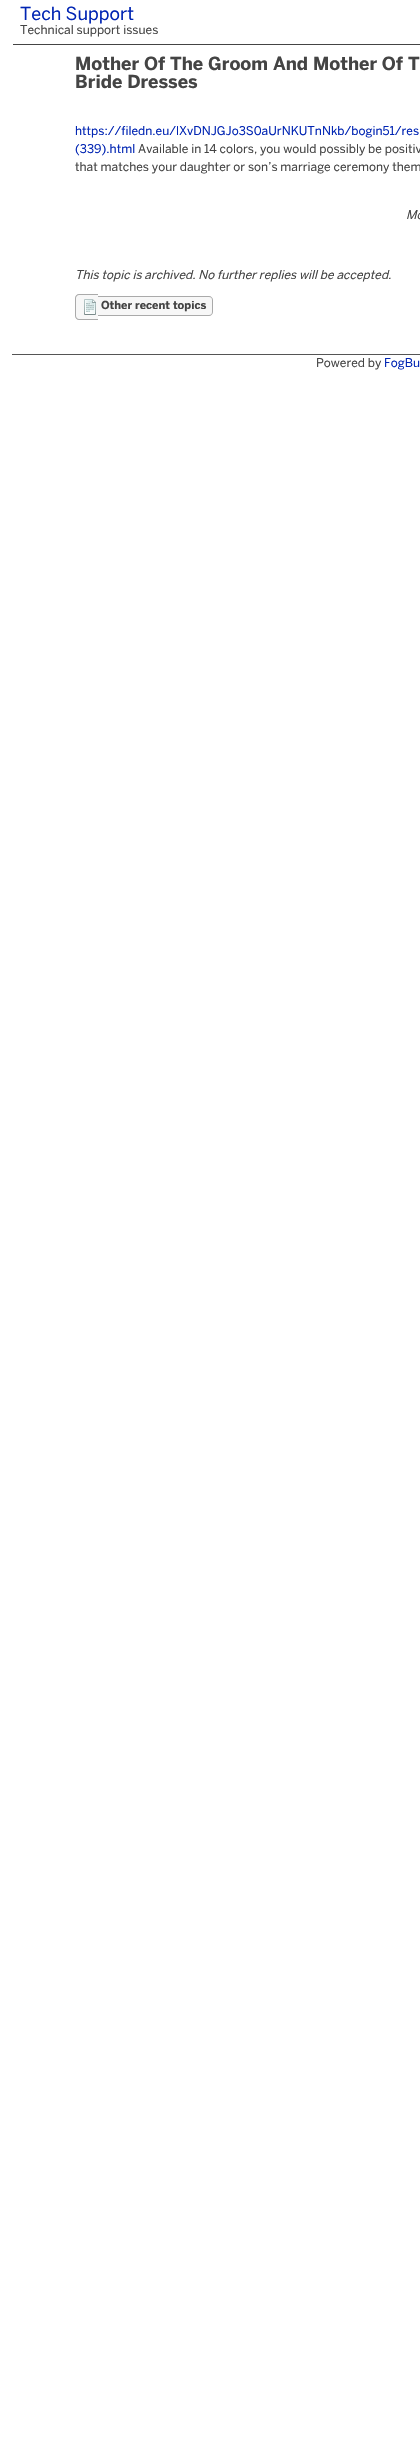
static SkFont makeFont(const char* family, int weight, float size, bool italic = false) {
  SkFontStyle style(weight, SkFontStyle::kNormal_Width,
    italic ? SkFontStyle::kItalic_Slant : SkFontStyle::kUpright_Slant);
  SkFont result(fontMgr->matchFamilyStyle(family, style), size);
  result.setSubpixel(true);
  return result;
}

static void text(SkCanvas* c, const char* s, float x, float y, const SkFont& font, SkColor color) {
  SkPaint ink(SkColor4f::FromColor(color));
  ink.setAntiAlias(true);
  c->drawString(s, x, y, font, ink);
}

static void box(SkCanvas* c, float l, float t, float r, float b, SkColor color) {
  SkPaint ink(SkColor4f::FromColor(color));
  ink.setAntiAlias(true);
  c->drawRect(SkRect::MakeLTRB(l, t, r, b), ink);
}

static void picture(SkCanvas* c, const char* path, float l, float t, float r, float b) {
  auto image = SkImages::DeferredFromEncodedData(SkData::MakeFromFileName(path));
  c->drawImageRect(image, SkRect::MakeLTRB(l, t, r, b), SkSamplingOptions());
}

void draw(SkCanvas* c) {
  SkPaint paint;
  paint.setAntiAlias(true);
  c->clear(0xffffffff);
  SkFont face1 = makeFont("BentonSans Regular", 400, 18);
  text(c, "Tech Support", 20, 20, face1, 0xff0024b3);
  box(c, 13, 44, 420, 45, 0xff444444);
  SkFont face2 = makeFont("BentonSans Regular", 400, 12);
  text(c, "Technical support issues", 20, 34, face2, 0xff444444);
  SkFont face3 = makeFont("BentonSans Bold", 700, 18);
  text(c, "Mother Of The Groom And Mother Of T", 75, 70, face3, 0xff444444);
  text(c, "Bride Dresses", 75, 88, face3, 0xff444444);
  text(c, "https://filedn.eu/lXvDNJGJo3S0aUrNKUTnNkb/bogin51/res", 75, 135, face2, 0xff0024b3);
  text(c, "(339).html", 75, 153, face2, 0xff0024b3);
  text(c, "Available in 14 colors, you would possibly be positiv", 138, 153, face2, 0xff444444);
  text(c, "that matches your daughter or son’s marriage ceremony them", 75, 171, face2, 0xff444444);
  SkFont face4 = makeFont("BentonSans Regular", 400, 12, true);
  text(c, "Mo", 406, 219, face4, 0xff444444);
  text(c, "This topic is archived. No further replies will be accepted.", 75, 279, face4, 0xff444444);
  paint.setColor(0xfff7f7f7);
  c->drawPath(SkPathBuilder().moveTo(79, 294).lineTo(98, 294).lineTo(98, 320).lineTo(79, 320).cubicTo(77, 320, 75, 318, 75, 316).lineTo(75, 298).cubicTo(75, 296, 77, 294, 79, 294).close().detach(), paint);
  paint.setColor(0xffaaaaaa);
  c->drawPath(SkPathBuilder(SkPathFillType::kEvenOdd).moveTo(79, 294).lineTo(98, 294).lineTo(98, 320).lineTo(79, 320).cubicTo(77, 320, 75, 318, 75, 316).lineTo(75, 298).cubicTo(75, 296, 77, 294, 79, 294).close().moveTo(79, 295).lineTo(98, 295).lineTo(98, 319).lineTo(79, 319).cubicTo(77.5f, 319, 76, 317.5f, 76, 316).lineTo(76, 298).cubicTo(76, 296.5f, 77.5f, 295, 79, 295).close().detach(), paint);
  picture(c, "img_01.png", 84, 299, 96, 315);
  paint.setColor(0xfff7f7f7);
  c->drawPath(SkPathBuilder().moveTo(98, 296).lineTo(209, 296).cubicTo(211, 296, 213, 298, 213, 300).lineTo(213, 312).cubicTo(213, 314, 211, 316, 209, 316).lineTo(98, 316).close().detach(), paint);
  paint.setColor(0xffaaaaaa);
  c->drawPath(SkPathBuilder(SkPathFillType::kEvenOdd).moveTo(98, 296).lineTo(209, 296).cubicTo(211, 296, 213, 298, 213, 300).lineTo(213, 312).cubicTo(213, 314, 211, 316, 209, 316).lineTo(98, 316).close().moveTo(98, 297).lineTo(209, 297).cubicTo(211, 297, 212, 298, 212, 300).lineTo(212, 312).cubicTo(212, 314, 211, 315, 209, 315).lineTo(98, 315).close().detach(), paint);
  SkFont face5 = makeFont("BentonSans Bold", 700, 11);
  text(c, "Other recent topics", 101, 309, face5, 0xff444444);
  box(c, 12, 354, 420, 355, 0xff555555);
  text(c, "Powered by", 316, 367, face2, 0xff444444);
  text(c, "FogBu", 384, 367, face2, 0xff0024b3);
}
